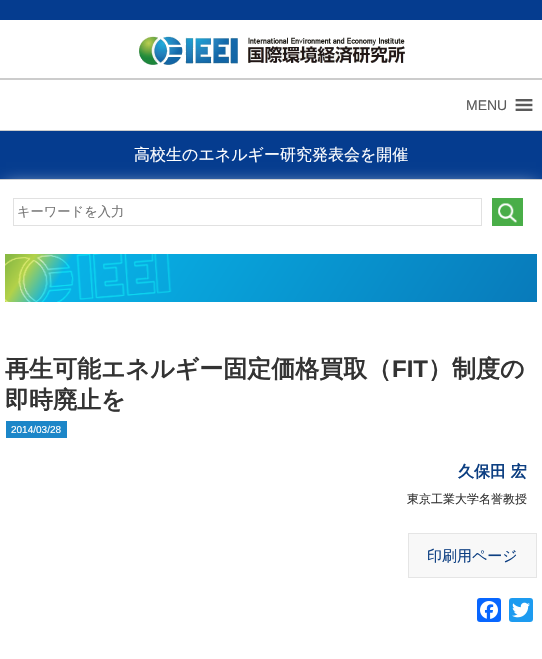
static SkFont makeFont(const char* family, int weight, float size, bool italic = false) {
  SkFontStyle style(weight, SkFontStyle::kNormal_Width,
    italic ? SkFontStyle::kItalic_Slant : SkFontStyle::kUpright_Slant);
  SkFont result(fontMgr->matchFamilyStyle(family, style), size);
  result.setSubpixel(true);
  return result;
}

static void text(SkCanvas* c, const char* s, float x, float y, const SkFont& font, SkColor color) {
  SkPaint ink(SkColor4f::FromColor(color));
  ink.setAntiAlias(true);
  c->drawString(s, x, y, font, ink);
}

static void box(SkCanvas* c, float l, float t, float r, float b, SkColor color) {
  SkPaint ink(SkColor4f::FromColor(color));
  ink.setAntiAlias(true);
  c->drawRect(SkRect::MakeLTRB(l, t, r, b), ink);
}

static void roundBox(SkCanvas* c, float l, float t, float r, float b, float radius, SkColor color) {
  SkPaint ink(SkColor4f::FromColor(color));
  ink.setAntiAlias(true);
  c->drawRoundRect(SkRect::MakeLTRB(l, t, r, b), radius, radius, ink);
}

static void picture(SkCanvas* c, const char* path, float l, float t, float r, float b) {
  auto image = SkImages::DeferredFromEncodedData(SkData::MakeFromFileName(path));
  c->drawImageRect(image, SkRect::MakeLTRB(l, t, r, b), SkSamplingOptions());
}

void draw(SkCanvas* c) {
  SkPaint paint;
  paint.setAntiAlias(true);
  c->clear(0xffffffff);
  box(c, 0, 0, 542, 20, 0xff053c8f);
  box(c, 0, 78, 542, 80, 0xffcccccc);
  picture(c, "img_01.png", 139, 36, 405, 65);
  SkFont face1 = makeFont("Liberation Sans", 400, 14);
  text(c, "MENU", 466, 110, face1, 0xff5a5a5a);
  picture(c, "img_02.png", 515, 99, 533, 111);
  box(c, 0, 131, 542, 179, 0xff053c8f);
  box(c, 0, 130, 542, 131, 0xffcccccc);
  box(c, 0, 179, 542, 180, 0xffcccccc);
  SkFont face2 = makeFont("WenQuanYi Zen Hei", 500, 16);
  text(c, "高校生のエネルギー研究発表会を開催", 134, 160, face2, 0xffffffff);
  paint.setColor(0xffeaeef2);
  paint.setMaskFilter(SkMaskFilter::MakeBlur(kNormal_SkBlurStyle, 8));
  c->drawRect(SkRect::MakeLTRB(6, 186, 536, 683), paint);
  paint.setMaskFilter(nullptr);
  box(c, 0, 180, 542, 659, 0xffffffff);
  paint.setStyle(SkPaint::kStroke_Style);
  paint.setStrokeWidth(1);
  paint.setColor(0xffe1e1e1);
  c->drawRect(SkRect::MakeLTRB(13.5f, 198.5f, 481.5f, 225.5f), paint);
  SkFont face3 = makeFont("WenQuanYi Zen Hei", 500, 13.25f);
  text(c, "キーワードを入力", 17, 216, face3, 0xff757575);
  picture(c, "img_03.png", 492, 198, 523, 226);
  picture(c, "img_04.png", 5, 254, 537, 302);
  SkFont face4 = makeFont("WenQuanYi Zen Hei", 700, 24);
  text(c, "再生可能エネルギー固定価格買取（", 5, 377, face4, 0xff333333);
  SkFont face5 = makeFont("Liberation Sans", 700, 24);
  text(c, "FIT", 392, 377, face5, 0xff333333);
  text(c, "）制度の", 428, 377, face4, 0xff333333);
  text(c, "即時廃止を", 5, 408, face4, 0xff333333);
  box(c, 6, 421, 67, 438, 0xff1c86c8);
  SkFont face6 = makeFont("Liberation Sans", 400, 10);
  text(c, "2014/03/28", 11, 433, face6, 0xffffffff);
  SkFont face7 = makeFont("WenQuanYi Zen Hei", 700, 16);
  text(c, "久保田 宏", 458, 477, face7, 0xff0d3f82);
  SkFont face8 = makeFont("WenQuanYi Zen Hei", 500, 12);
  text(c, "東京工業大学名誉教授", 407, 503, face8, 0xff333333);
  paint.setStyle(SkPaint::kFill_Style);
  paint.setColor(0xfff8f8f8);
  c->drawRect(SkRect::MakeLTRB(408.5f, 533.5f, 536.5f, 577.5f), paint);
  paint.setStyle(SkPaint::kStroke_Style);
  paint.setColor(0xffe5e5e5);
  c->drawRect(SkRect::MakeLTRB(408.5f, 533.5f, 536.5f, 577.5f), paint);
  SkFont face9 = makeFont("WenQuanYi Zen Hei", 500, 15);
  text(c, "印刷用ページ", 427, 561, face9, 0xff0d3f82);
  roundBox(c, 477, 598, 501, 622, 3, 0xff0866ff);
  picture(c, "img_05.png", 480, 601, 498, 619);
  roundBox(c, 509, 598, 533, 622, 3, 0xff1d9bf0);
  picture(c, "img_06.png", 512, 602, 530, 618);
}
